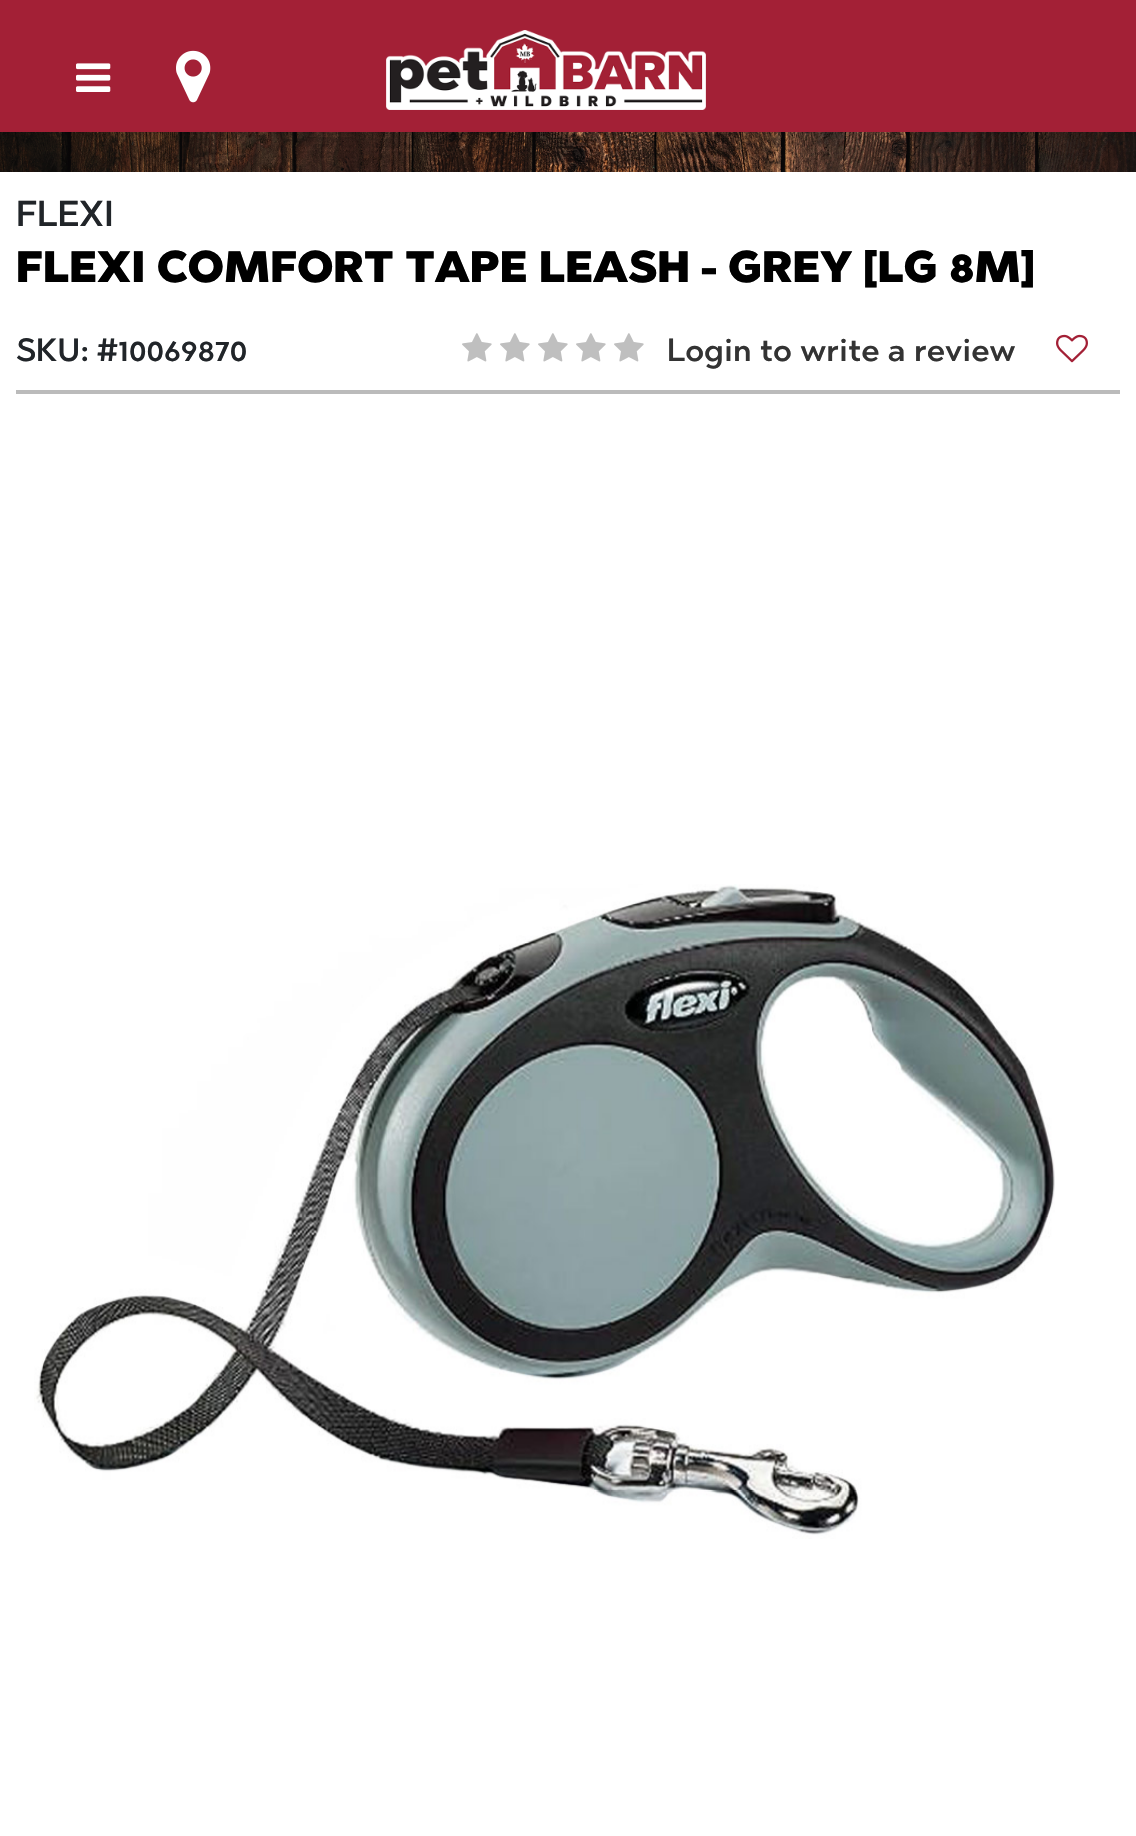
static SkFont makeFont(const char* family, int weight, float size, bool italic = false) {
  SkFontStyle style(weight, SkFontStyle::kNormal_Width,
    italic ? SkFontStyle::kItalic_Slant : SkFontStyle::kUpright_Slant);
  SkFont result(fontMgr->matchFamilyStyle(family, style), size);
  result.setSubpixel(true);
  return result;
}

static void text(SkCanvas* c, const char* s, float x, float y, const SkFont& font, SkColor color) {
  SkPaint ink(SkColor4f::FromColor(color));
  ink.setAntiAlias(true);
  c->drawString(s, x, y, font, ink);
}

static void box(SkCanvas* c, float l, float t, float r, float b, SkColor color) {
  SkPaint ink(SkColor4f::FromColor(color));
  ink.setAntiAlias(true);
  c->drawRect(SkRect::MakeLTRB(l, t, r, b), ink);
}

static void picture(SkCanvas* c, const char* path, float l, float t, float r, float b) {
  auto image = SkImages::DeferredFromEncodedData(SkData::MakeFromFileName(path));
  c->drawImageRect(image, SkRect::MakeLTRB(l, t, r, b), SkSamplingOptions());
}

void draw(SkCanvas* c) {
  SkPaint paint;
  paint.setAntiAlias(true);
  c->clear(0xffffffff);
  picture(c, "img_04.png", 0, 132, 1136, 172);
  paint.setColor(0x12000000);
  paint.setMaskFilter(SkMaskFilter::MakeBlur(kNormal_SkBlurStyle, 4));
  c->drawRect(SkRect::MakeLTRB(0, 4, 1136, 136), paint);
  paint.setMaskFilter(nullptr);
  box(c, 0, 0, 1136, 132, 0xffa32036);
  picture(c, "img_01.png", 76, 63, 111, 92);
  picture(c, "img_02.png", 176, 50, 211, 103);
  picture(c, "img_03.png", 386, 30, 706, 110);
  SkFont face1 = makeFont("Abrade", 500, 36);
  text(c, "FLEXI", 16, 226, face1, 0xff212529);
  SkFont face2 = makeFont("Abrade", 900, 44);
  text(c, "FLEXI COMFORT TAPE LEASH - GREY [LG 8M]", 16, 282, face2, 0xff000000);
  box(c, 16, 390, 1120, 394, 0xffbbbbbb);
  SkFont face3 = makeFont("Abrade", 500, 32);
  text(c, "SKU: #10069870", 16, 361, face3, 0xff212529);
  picture(c, "img_05.png", 462, 333, 492, 362);
  picture(c, "img_05.png", 500, 333, 530, 362);
  picture(c, "img_05.png", 538, 333, 568, 362);
  picture(c, "img_05.png", 576, 333, 606, 362);
  picture(c, "img_05.png", 614, 333, 644, 362);
  text(c, "Login to write a review", 667, 361, face3, 0xff333333);
  picture(c, "img_06.png", 1056, 334, 1088, 363);
  picture(c, "img_07.png", 34, 884, 1055, 1539);
}
